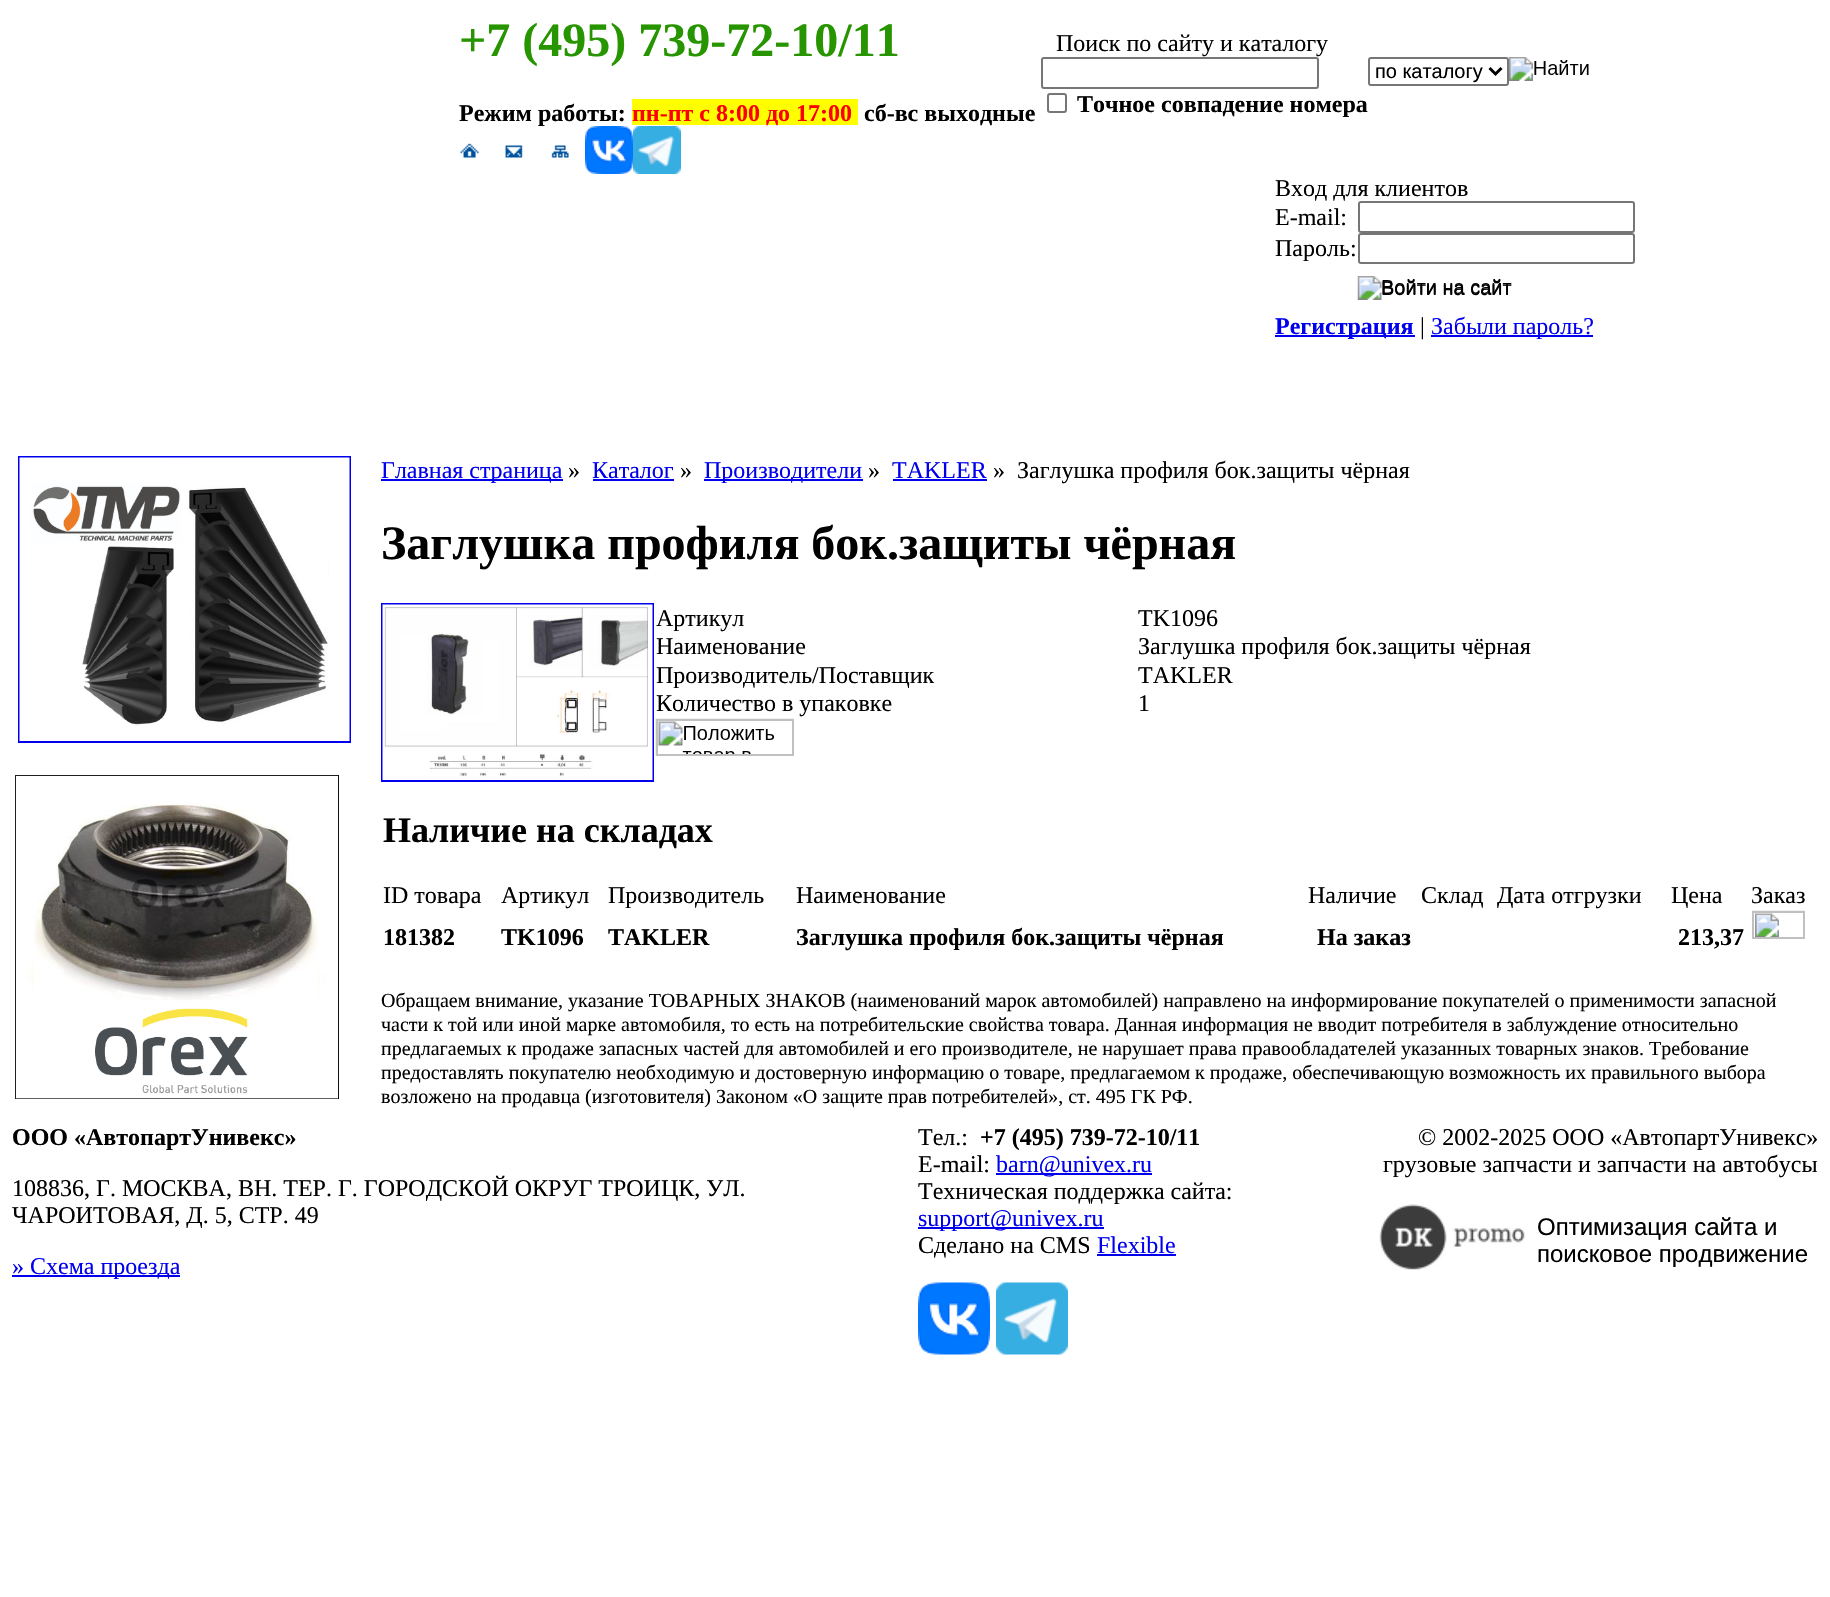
static SkFont makeFont(const char* family, int weight, float size, bool italic = false) {
  SkFontStyle style(weight, SkFontStyle::kNormal_Width,
    italic ? SkFontStyle::kItalic_Slant : SkFontStyle::kUpright_Slant);
  SkFont result(fontMgr->matchFamilyStyle(family, style), size);
  result.setSubpixel(true);
  return result;
}

static void text(SkCanvas* c, const char* s, float x, float y, const SkFont& font, SkColor color) {
  SkPaint ink(SkColor4f::FromColor(color));
  ink.setAntiAlias(true);
  c->drawString(s, x, y, font, ink);
}

static void box(SkCanvas* c, float l, float t, float r, float b, SkColor color) {
  SkPaint ink(SkColor4f::FromColor(color));
  ink.setAntiAlias(true);
  c->drawRect(SkRect::MakeLTRB(l, t, r, b), ink);
}

static void picture(SkCanvas* c, const char* path, float l, float t, float r, float b) {
  auto image = SkImages::DeferredFromEncodedData(SkData::MakeFromFileName(path));
  c->drawImageRect(image, SkRect::MakeLTRB(l, t, r, b), SkSamplingOptions());
}

void draw(SkCanvas* c) {
  SkPaint paint;
  paint.setAntiAlias(true);
  c->clear(0xffffffff);
  SkFont face1 = makeFont("Liberation Serif", 700, 48);
  text(c, "+7 (495) 739-72-10/11", 459, 56, face1, 0xff279500);
  SkFont face2 = makeFont("Liberation Serif", 700, 24);
  text(c, "Режим работы:", 459, 121, face2, 0xff000000);
  box(c, 632, 99, 858, 125, 0xffffff00);
  text(c, "пн-пт с 8:00 до 17:00", 632, 121, face2, 0xffff0000);
  text(c, "сб-вс выходные", 864, 121, face2, 0xff000000);
  SkFont face3 = makeFont("Liberation Serif", 400, 24);
  text(c, "Поиск по сайту и каталогу", 1056, 51, face3, 0xff000000);
  paint.setStyle(SkPaint::kStroke_Style);
  paint.setStrokeWidth(2);
  paint.setColor(0xff767676);
  c->drawRoundRect(SkRect::MakeLTRB(1369, 58, 1508, 85), 2, 2, paint);
  paint.setStrokeWidth(3);
  paint.setColor(0xff000000);
  c->drawPath(SkPathBuilder().moveTo(1489.5f, 68).lineTo(1495.5f, 74).lineTo(1501.5f, 68).detach(), paint);
  SkFont face4 = makeFont("Liberation Sans", 400, 20);
  text(c, "по каталогу", 1375, 78, face4, 0xff000000);
  picture(c, "img_01.png", 1509, 57, 1589, 81);
  paint.setStrokeWidth(2);
  paint.setColor(0xff767676);
  c->drawRoundRect(SkRect::MakeLTRB(1042, 58, 1318, 88), 2, 2, paint);
  c->drawRoundRect(SkRect::MakeLTRB(1048, 94, 1066, 112), 2, 2, paint);
  text(c, "Точное совпадение номера", 1077, 112, face2, 0xff000000);
  picture(c, "img_02.png", 460, 143, 479, 158);
  picture(c, "img_03.png", 505, 145, 523, 158);
  picture(c, "img_04.png", 551, 145, 569, 158);
  picture(c, "img_05.png", 585, 126, 633, 174);
  picture(c, "img_06.png", 633, 126, 681, 174);
  text(c, "Вход для клиентов", 1275, 196, face3, 0xff000000);
  text(c, "E-mail:", 1275, 225, face3, 0xff000000);
  c->drawRoundRect(SkRect::MakeLTRB(1359, 202, 1634, 232), 2, 2, paint);
  text(c, "Пароль:", 1275, 256, face3, 0xff000000);
  c->drawRoundRect(SkRect::MakeLTRB(1359, 234, 1634, 263), 2, 2, paint);
  picture(c, "img_07.png", 1357, 276, 1512, 300);
  text(c, "Войти на сайт", 1381, 295, face4, 0xff000000);
  box(c, 1275, 335, 1415, 337, 0xff0000ee);
  text(c, "Регистрация", 1275, 334, face2, 0xff0000ee);
  text(c, "|", 1420, 334, face3, 0xff000000);
  box(c, 1431, 335, 1593, 337, 0xff0000ee);
  text(c, "Забыли пароль?", 1431, 334, face3, 0xff0000ee);
  paint.setColor(0xff0000ee);
  c->drawRect(SkRect::MakeLTRB(19, 457, 350, 742), paint);
  picture(c, "img_08.png", 19, 457, 350, 741);
  picture(c, "img_09.png", 15, 775, 339, 1099);
  box(c, 381, 479, 563, 481, 0xff0000ee);
  text(c, "Главная страница", 381, 478, face3, 0xff0000ee);
  text(c, "»", 568, 478, face3, 0xff000000);
  text(c, "Каталог", 592, 478, face3, 0xff0000ee);
  box(c, 593, 479, 674, 481, 0xff0000ee);
  text(c, "»", 680, 478, face3, 0xff000000);
  box(c, 704, 479, 863, 481, 0xff0000ee);
  text(c, "Производители", 704, 478, face3, 0xff0000ee);
  text(c, "»", 868, 478, face3, 0xff000000);
  text(c, "TAKLER", 892, 478, face3, 0xff0000ee);
  box(c, 893, 479, 987, 481, 0xff0000ee);
  text(c, "»", 993, 478, face3, 0xff000000);
  text(c, "Заглушка профиля бок.защиты чёрная", 1017, 478, face3, 0xff000000);
  text(c, "Заглушка профиля бок.защиты чёрная", 381, 559, face1, 0xff000000);
  c->drawRect(SkRect::MakeLTRB(382, 604, 653, 781), paint);
  picture(c, "img_10.png", 382, 604, 653, 780);
  text(c, "Артикул", 656, 626, face3, 0xff000000);
  text(c, "TK1096", 1138, 626, face3, 0xff000000);
  text(c, "Наименование", 656, 654, face3, 0xff000000);
  text(c, "Заглушка профиля бок.защиты чёрная", 1138, 654, face3, 0xff000000);
  text(c, "Производитель/Поставщик", 656, 683, face3, 0xff000000);
  text(c, "TAKLER", 1138, 683, face3, 0xff000000);
  text(c, "Количество в упаковке", 656, 711, face3, 0xff000000);
  text(c, "1", 1138, 711, face3, 0xff000000);
  picture(c, "img_11.png", 655, 718, 794, 756);
  paint.setColor(0xffc0c0c0);
  c->drawRect(SkRect::MakeLTRB(657, 720, 793, 755), paint);
  SkFont face5 = makeFont("Liberation Serif", 700, 36);
  text(c, "Наличие на складах", 383, 842, face5, 0xff000000);
  text(c, "ID товара", 383, 903, face3, 0xff000000);
  text(c, "Артикул", 501, 903, face3, 0xff000000);
  text(c, "Производитель", 608, 903, face3, 0xff000000);
  text(c, "Наименование", 796, 903, face3, 0xff000000);
  text(c, "Наличие", 1308, 903, face3, 0xff000000);
  text(c, "Склад", 1421, 903, face3, 0xff000000);
  text(c, "Дата отгрузки", 1497, 903, face3, 0xff000000);
  text(c, "Цена", 1671, 903, face3, 0xff000000);
  text(c, "Заказ", 1751, 903, face3, 0xff000000);
  text(c, "181382", 383, 945, face2, 0xff000000);
  text(c, "TK1096", 501, 945, face2, 0xff000000);
  text(c, "TAKLER", 608, 945, face2, 0xff000000);
  text(c, "Заглушка профиля бок.защиты чёрная", 796, 945, face2, 0xff000000);
  text(c, "На заказ", 1317, 945, face2, 0xff000000);
  text(c, "213,37", 1678, 945, face2, 0xff000000);
  picture(c, "img_12.png", 1752, 910, 1805, 937);
  c->drawRect(SkRect::MakeLTRB(1753, 912, 1804, 938), paint);
  SkFont face6 = makeFont("Liberation Serif", 400, 20);
  text(c, "Обращаем внимание, указание ТОВАРНЫХ ЗНАКОВ (наименований марок автомобилей) направлено на информирование покупателей о применимости запасной", 381, 1007, face6, 0xff000000);
  text(c, "части к той или иной марке автомобиля, то есть на потребительские свойства товара. Данная информация не вводит потребителя в заблуждение относительно", 381, 1031, face6, 0xff000000);
  text(c, "предлагаемых к продаже запасных частей для автомобилей и его производителе, не нарушает права правообладателей указанных товарных знаков. Требование", 381, 1055, face6, 0xff000000);
  text(c, "предоставлять покупателю необходимую и достоверную информацию о товаре, предлагаемом к продаже, обеспечивающую возможность их правильного выбора", 381, 1079, face6, 0xff000000);
  text(c, "возложено на продавца (изготовителя) Законом «О защите прав потребителей», ст. 495 ГК РФ.", 381, 1103, face6, 0xff000000);
  text(c, "ООО «АвтопартУнивекс»", 12, 1145, face2, 0xff000000);
  text(c, "108836, Г. МОСКВА, ВН. ТЕР. Г. ГОРОДСКОЙ ОКРУГ ТРОИЦК, УЛ.", 12, 1196, face3, 0xff000000);
  text(c, "ЧАРОИТОВАЯ, Д. 5, СТР. 49", 12, 1223, face3, 0xff000000);
  box(c, 12, 1275, 180, 1277, 0xff0000ee);
  text(c, "» Схема проезда", 12, 1274, face3, 0xff0000ee);
  text(c, "Тел.:", 918, 1145, face3, 0xff000000);
  text(c, "+7 (495) 739-72-10/11", 980, 1145, face2, 0xff000000);
  text(c, "E-mail:", 918, 1172, face3, 0xff000000);
  box(c, 996, 1173, 1152, 1175, 0xff0000ee);
  text(c, "barn@univex.ru", 996, 1172, face3, 0xff0000ee);
  text(c, "Техническая поддержка сайта:", 918, 1199, face3, 0xff000000);
  box(c, 918, 1227, 1104, 1229, 0xff0000ee);
  text(c, "support@univex.ru", 918, 1226, face3, 0xff0000ee);
  text(c, "Сделано на CMS", 918, 1253, face3, 0xff000000);
  text(c, "Flexible", 1097, 1253, face3, 0xff0000ee);
  box(c, 1097, 1254, 1176, 1256, 0xff0000ee);
  picture(c, "img_13.png", 918, 1282, 990, 1355);
  picture(c, "img_14.png", 996, 1282, 1068, 1355);
  text(c, "© 2002-2025 ООО «АвтопартУнивекс»", 1418, 1145, face3, 0xff000000);
  text(c, "грузовые запчасти и запчасти на автобусы", 1383, 1172, face3, 0xff000000);
  picture(c, "img_15.png", 1379, 1204, 1525, 1270);
  SkFont face7 = makeFont("Liberation Sans", 400, 24);
  text(c, "Оптимизация сайта и", 1537, 1235, face7, 0xff000000);
  text(c, "поисковое продвижение", 1537, 1262, face7, 0xff000000);
}
